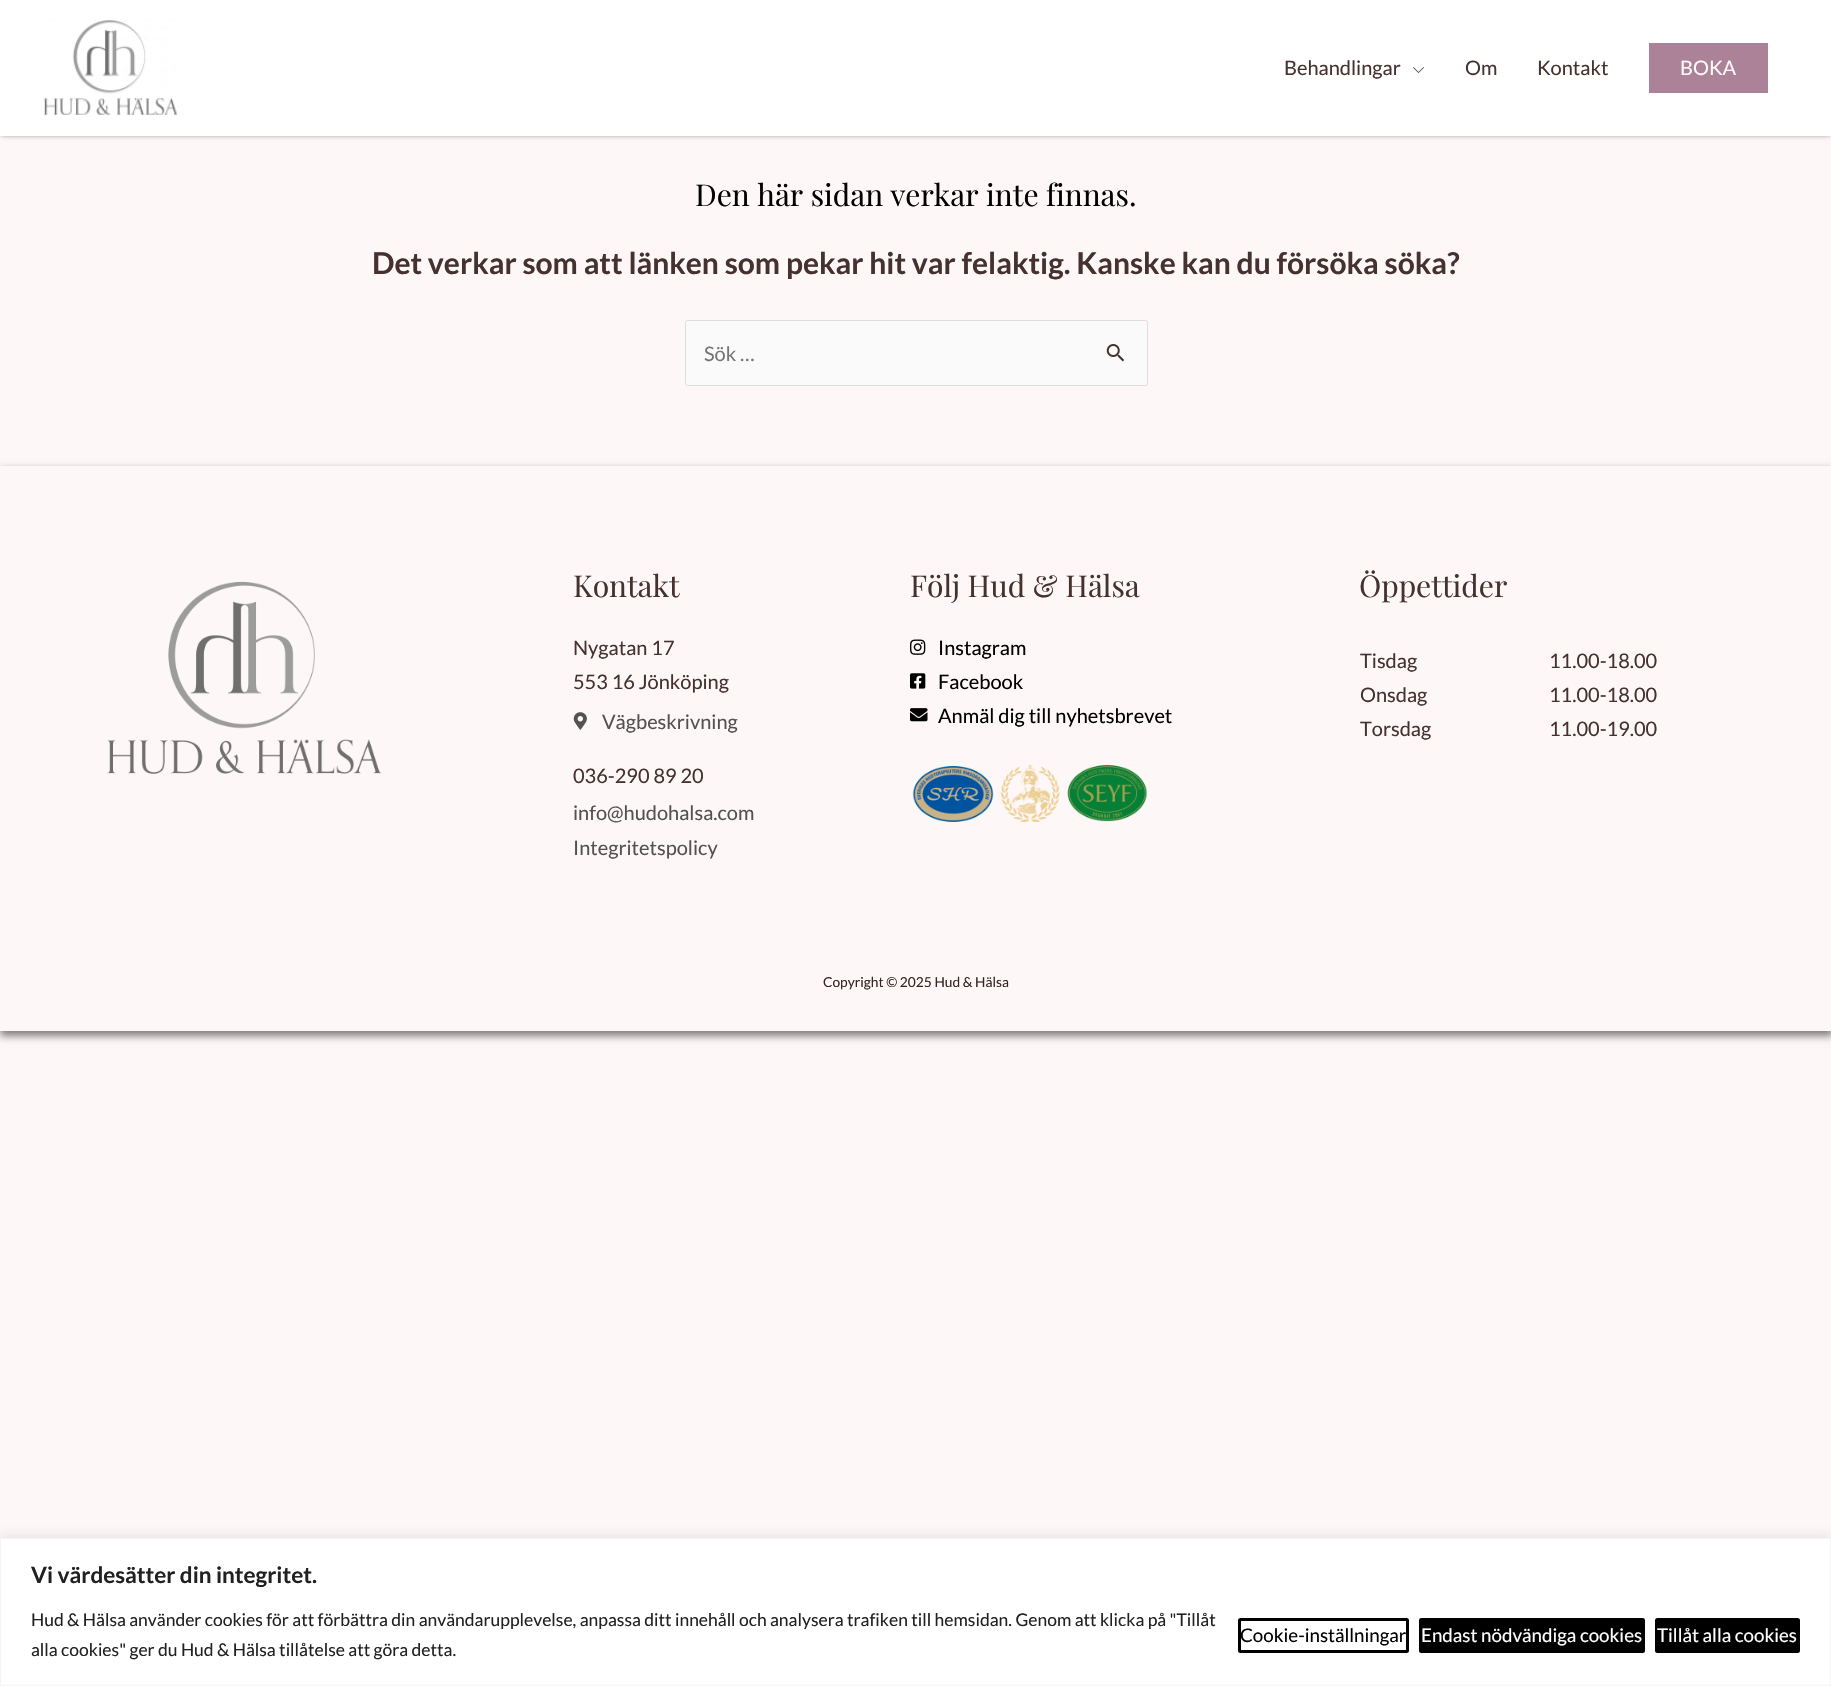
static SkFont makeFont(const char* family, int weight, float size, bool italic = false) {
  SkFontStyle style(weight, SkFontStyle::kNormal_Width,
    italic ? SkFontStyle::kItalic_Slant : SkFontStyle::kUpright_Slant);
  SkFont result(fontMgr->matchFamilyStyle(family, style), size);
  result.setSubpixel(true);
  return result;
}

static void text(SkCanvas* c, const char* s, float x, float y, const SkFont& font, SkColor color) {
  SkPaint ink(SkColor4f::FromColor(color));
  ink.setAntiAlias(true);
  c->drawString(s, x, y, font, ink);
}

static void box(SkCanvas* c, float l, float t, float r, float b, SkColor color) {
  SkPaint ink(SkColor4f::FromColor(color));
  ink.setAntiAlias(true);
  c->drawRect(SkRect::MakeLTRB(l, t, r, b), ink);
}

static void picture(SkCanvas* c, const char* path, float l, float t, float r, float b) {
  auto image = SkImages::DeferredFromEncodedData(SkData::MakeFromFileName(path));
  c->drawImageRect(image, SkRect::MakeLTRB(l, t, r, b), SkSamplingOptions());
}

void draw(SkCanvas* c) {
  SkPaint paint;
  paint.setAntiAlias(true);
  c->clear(0xfffdf8f7);
  paint.setColor(0x80000000);
  paint.setMaskFilter(SkMaskFilter::MakeBlur(kNormal_SkBlurStyle, 2.5f));
  c->drawRect(SkRect::MakeLTRB(1, 1, 1830, 135), paint);
  paint.setMaskFilter(nullptr);
  box(c, 0, 0, 1831, 136, 0xffffffff);
  picture(c, "img_01.png", 43, 20, 178, 115);
  SkFont face1 = makeFont("Lato", 400, 20);
  text(c, "Behandlingar", 1284, 75, face1, 0xff453230);
  picture(c, "img_02.png", 1413, 67, 1424, 73);
  text(c, "Om", 1465, 75, face1, 0xff453230);
  text(c, "Kontakt", 1537, 75, face1, 0xff453230);
  box(c, 1649, 43, 1768, 93, 0xffab8298);
  text(c, "BOKA", 1680, 75, face1, 0xfffdf8f7);
  SkFont face2 = makeFont("Playfair Display", 400, 30);
  text(c, "Den här sidan verkar inte finnas.", 695, 206, face2, 0xff000000);
  SkFont face3 = makeFont("Lato", 700, 30);
  text(c, "Det verkar som att länken som pekar hit var felaktig. Kanske kan du försöka söka?", 372, 274, face3, 0xff453230);
  paint.setColor(0xfffafafa);
  c->drawRoundRect(SkRect::MakeLTRB(685.5f, 320.5f, 1147.5f, 385.5f), 2, 2, paint);
  paint.setStyle(SkPaint::kStroke_Style);
  paint.setStrokeWidth(1);
  paint.setColor(0xffdddddd);
  c->drawRoundRect(SkRect::MakeLTRB(685.5f, 320.5f, 1147.5f, 385.5f), 2, 2, paint);
  text(c, "Sök …", 704, 361, face1, 0xff757575);
  picture(c, "img_03.png", 1106, 344, 1125, 362);
  c->save();
  c->clipPath(SkPathBuilder(SkPathFillType::kEvenOdd).moveTo(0, 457).lineTo(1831, 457).lineTo(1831, 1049).lineTo(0, 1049).close().moveTo(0, 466).lineTo(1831, 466).lineTo(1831, 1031).lineTo(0, 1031).close().detach(), true);
  paint.setStyle(SkPaint::kFill_Style);
  paint.setColor(0x80000000);
  paint.setMaskFilter(SkMaskFilter::MakeBlur(kNormal_SkBlurStyle, 4));
  c->drawRect(SkRect::MakeLTRB(0, 470, 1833, 1036), paint);
  paint.setMaskFilter(nullptr);
  c->restore();
  picture(c, "img_04.png", 107, 581, 382, 774);
  text(c, "Kontakt", 573, 597, face2, 0xff453230);
  text(c, "Nygatan 17", 573, 655, face1, 0xff453230);
  text(c, "553 16 Jönköping", 573, 689, face1, 0xff453230);
  picture(c, "img_05.png", 573, 712, 587, 730);
  text(c, "Vägbeskrivning", 602, 729, face1, 0xff525252);
  text(c, "036-290 89 20", 573, 783, face1, 0xff453230);
  text(c, "info@hudohalsa.com", 573, 820, face1, 0xff525252);
  text(c, "Integritetspolicy", 573, 855, face1, 0xff525252);
  text(c, "Följ Hud & Hälsa", 910, 597, face2, 0xff453230);
  picture(c, "img_06.png", 910, 639, 926, 655);
  text(c, "Instagram", 938, 655, face1, 0xff000000);
  picture(c, "img_07.png", 910, 673, 926, 689);
  text(c, "Facebook", 938, 689, face1, 0xff000000);
  picture(c, "img_08.png", 910, 708, 928, 722);
  text(c, "Anmäl dig till nyhetsbrevet", 938, 723, face1, 0xff000000);
  picture(c, "img_09.png", 912, 764, 1147, 822);
  text(c, "Öppettider", 1359, 597, face2, 0xff453230);
  text(c, "Tisdag", 1360, 668, face1, 0xff453230);
  text(c, "Onsdag", 1360, 702, face1, 0xff453230);
  text(c, "Torsdag", 1360, 736, face1, 0xff453230);
  text(c, "11.00-18.00", 1549, 668, face1, 0xff453230);
  text(c, "11.00-18.00", 1549, 702, face1, 0xff453230);
  text(c, "11.00-19.00", 1549, 736, face1, 0xff453230);
  SkFont face4 = makeFont("Lato", 400, 13.75f);
  text(c, "Copyright © 2025 Hud & Hälsa", 823, 987, face4, 0xff352424);
  paint.setColor(0x4dacabab);
  paint.setMaskFilter(SkMaskFilter::MakeBlur(kNormal_SkBlurStyle, 6));
  c->drawRect(SkRect::MakeLTRB(0, 1536, 1831, 1685), paint);
  paint.setMaskFilter(nullptr);
  paint.setColor(0xffffffff);
  c->drawRect(SkRect::MakeLTRB(0.5f, 1538.5f, 1830.5f, 1685.5f), paint);
  paint.setStyle(SkPaint::kStroke_Style);
  paint.setColor(0xfff4f4f4);
  c->drawRect(SkRect::MakeLTRB(0.5f, 1538.5f, 1830.5f, 1685.5f), paint);
  SkFont face5 = makeFont("Lato", 700, 22.5f);
  text(c, "Vi värdesätter din integritet.", 31, 1583, face5, 0xff212121);
  SkFont face6 = makeFont("Lato", 400, 17.5f);
  text(c, "Hud & Hälsa använder cookies för att förbättra din användarupplevelse, anpassa ditt innehåll och analysera trafiken till hemsidan. Genom att klicka på \"Tillåt", 31, 1626, face6, 0xff212121);
  text(c, "alla cookies\" ger du Hud & Hälsa tillåtelse att göra detta.", 31, 1656, face6, 0xff212121);
  paint.setStrokeWidth(3);
  paint.setColor(0xff000000);
  c->drawRoundRect(SkRect::MakeLTRB(1239.5f, 1619.5f, 1407.5f, 1651.5f), 1, 1, paint);
  SkFont face7 = makeFont("Lato", 400, 18.75f);
  text(c, "Cookie-inställningar", 1240, 1642, face7, 0xff000000);
  paint.setStyle(SkPaint::kFill_Style);
  c->drawRoundRect(SkRect::MakeLTRB(1420.5f, 1619.5f, 1643.5f, 1651.5f), 1, 1, paint);
  paint.setStyle(SkPaint::kStroke_Style);
  c->drawRoundRect(SkRect::MakeLTRB(1420.5f, 1619.5f, 1643.5f, 1651.5f), 1, 1, paint);
  text(c, "Endast nödvändiga cookies", 1421, 1642, face7, 0xffffffff);
  paint.setStyle(SkPaint::kFill_Style);
  c->drawRoundRect(SkRect::MakeLTRB(1656.5f, 1619.5f, 1798.5f, 1651.5f), 1, 1, paint);
  paint.setStyle(SkPaint::kStroke_Style);
  c->drawRoundRect(SkRect::MakeLTRB(1656.5f, 1619.5f, 1798.5f, 1651.5f), 1, 1, paint);
  text(c, "Tillåt alla cookies", 1657, 1642, face7, 0xffffffff);
}
